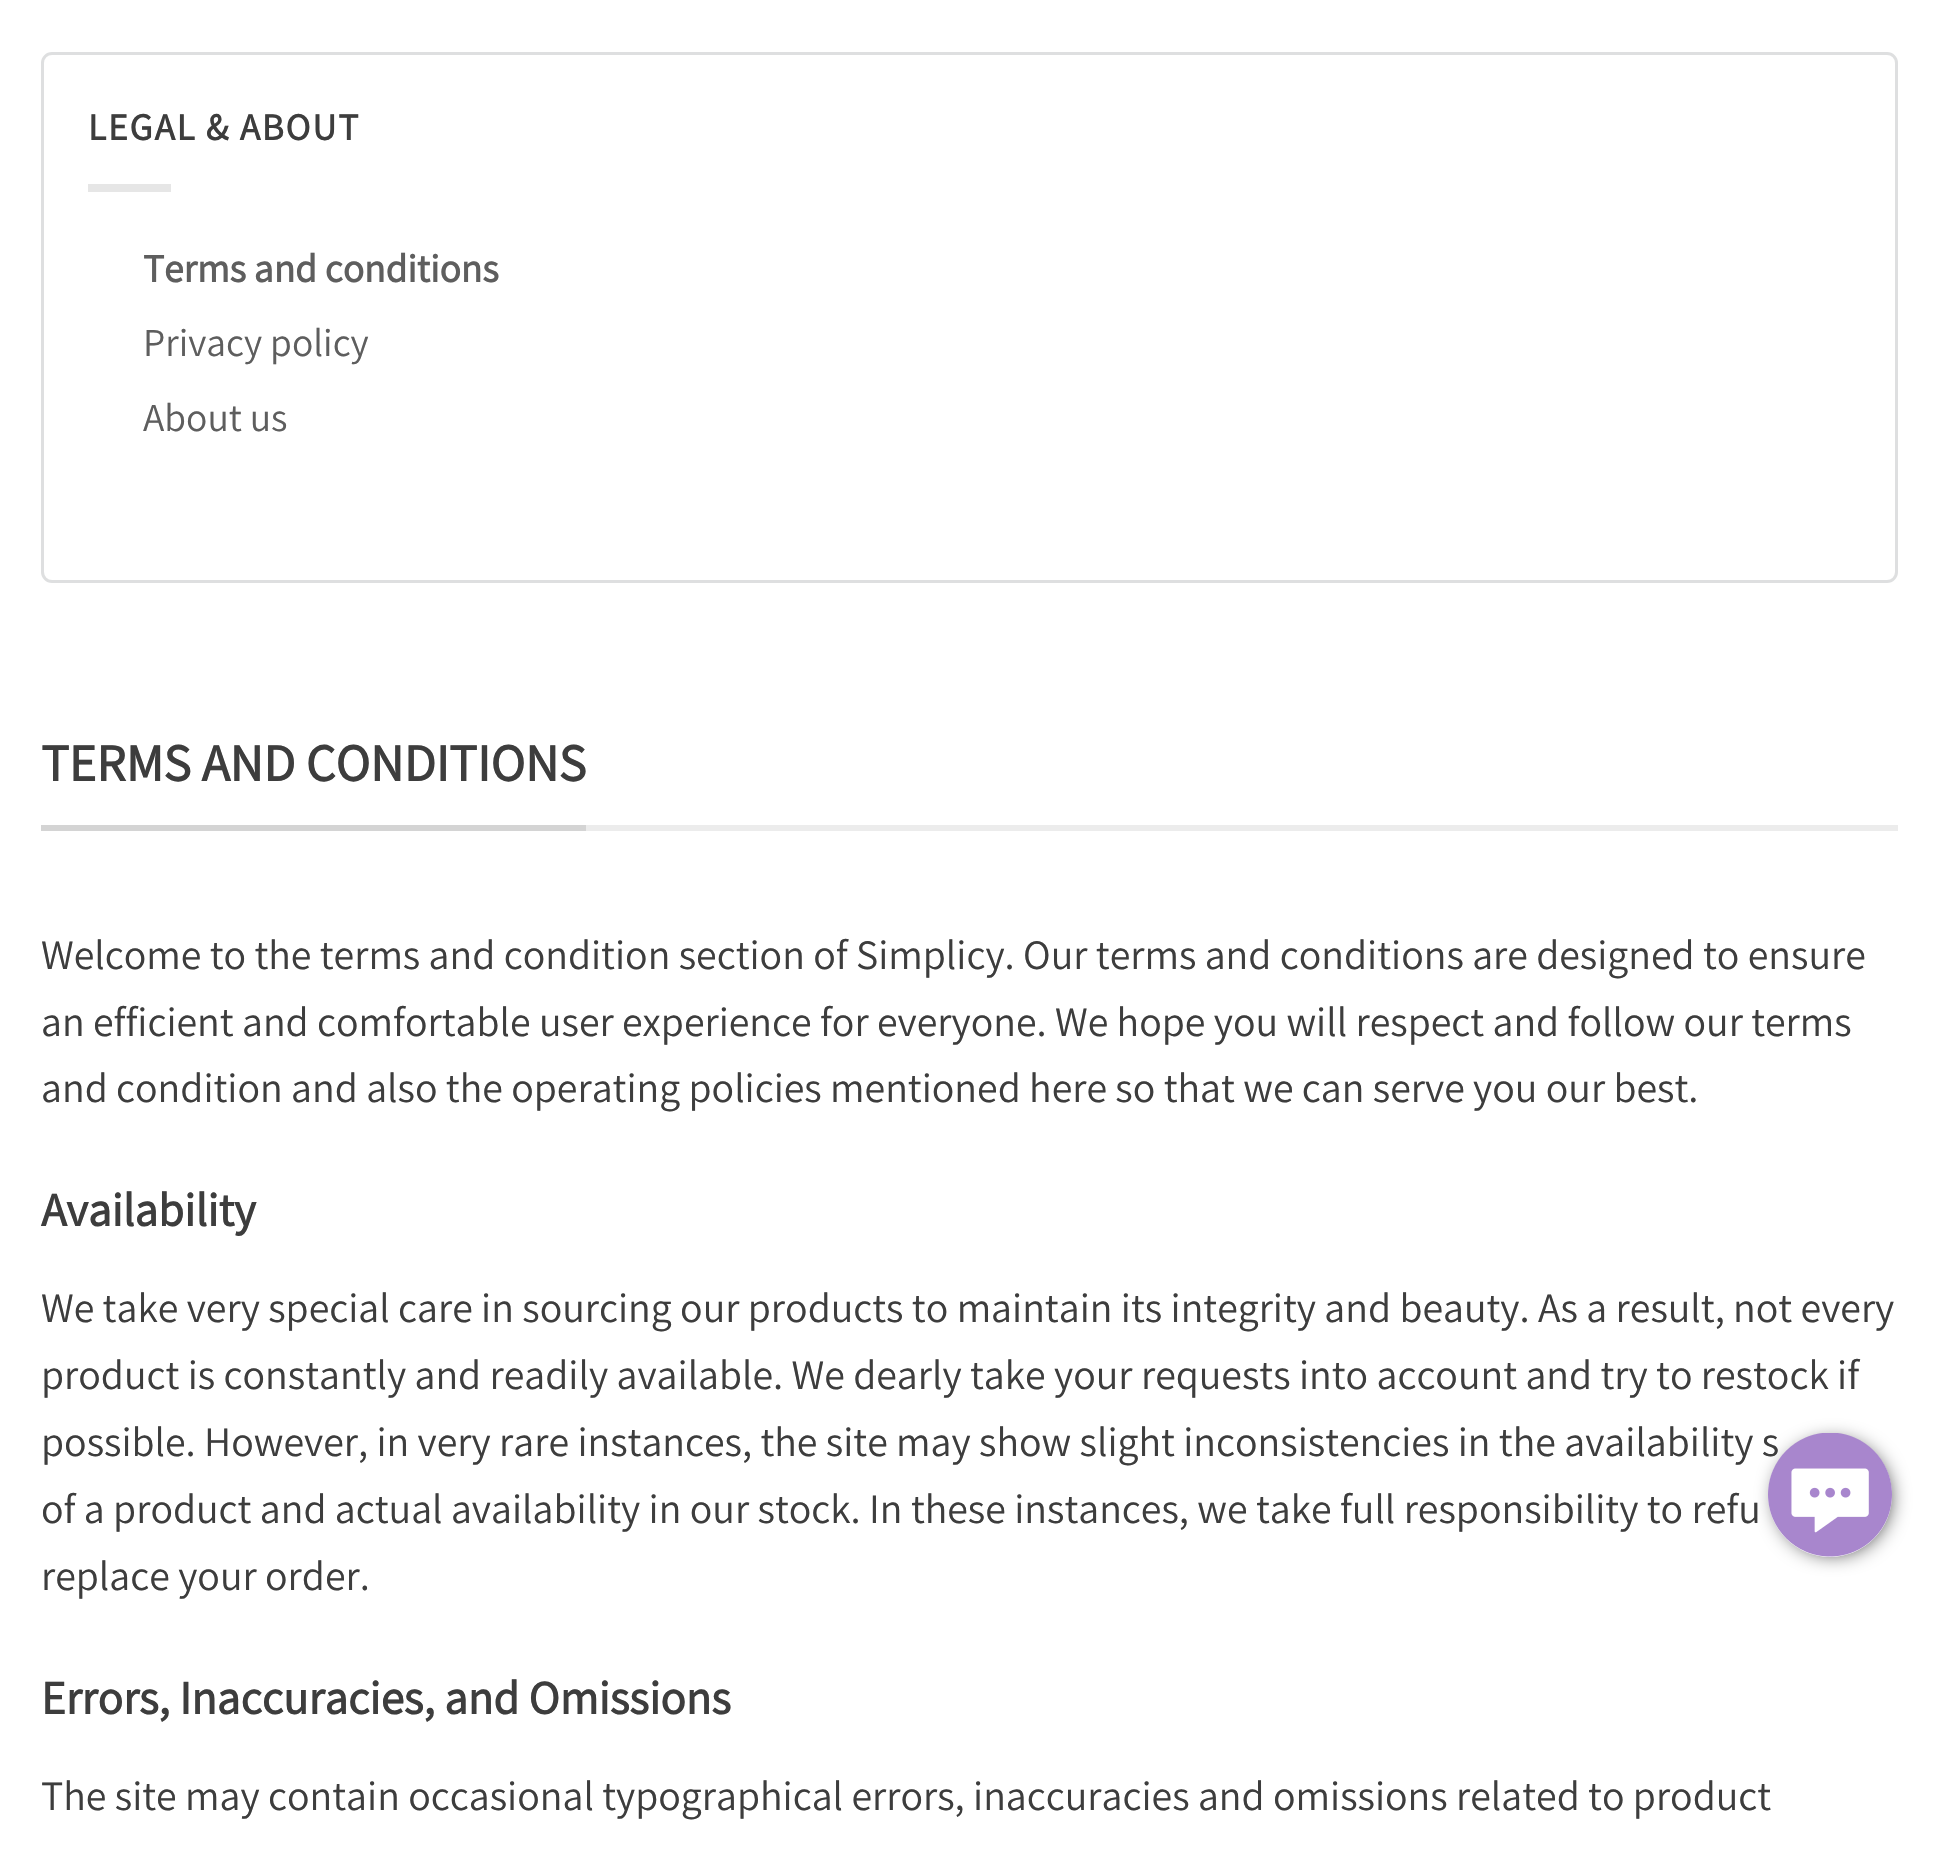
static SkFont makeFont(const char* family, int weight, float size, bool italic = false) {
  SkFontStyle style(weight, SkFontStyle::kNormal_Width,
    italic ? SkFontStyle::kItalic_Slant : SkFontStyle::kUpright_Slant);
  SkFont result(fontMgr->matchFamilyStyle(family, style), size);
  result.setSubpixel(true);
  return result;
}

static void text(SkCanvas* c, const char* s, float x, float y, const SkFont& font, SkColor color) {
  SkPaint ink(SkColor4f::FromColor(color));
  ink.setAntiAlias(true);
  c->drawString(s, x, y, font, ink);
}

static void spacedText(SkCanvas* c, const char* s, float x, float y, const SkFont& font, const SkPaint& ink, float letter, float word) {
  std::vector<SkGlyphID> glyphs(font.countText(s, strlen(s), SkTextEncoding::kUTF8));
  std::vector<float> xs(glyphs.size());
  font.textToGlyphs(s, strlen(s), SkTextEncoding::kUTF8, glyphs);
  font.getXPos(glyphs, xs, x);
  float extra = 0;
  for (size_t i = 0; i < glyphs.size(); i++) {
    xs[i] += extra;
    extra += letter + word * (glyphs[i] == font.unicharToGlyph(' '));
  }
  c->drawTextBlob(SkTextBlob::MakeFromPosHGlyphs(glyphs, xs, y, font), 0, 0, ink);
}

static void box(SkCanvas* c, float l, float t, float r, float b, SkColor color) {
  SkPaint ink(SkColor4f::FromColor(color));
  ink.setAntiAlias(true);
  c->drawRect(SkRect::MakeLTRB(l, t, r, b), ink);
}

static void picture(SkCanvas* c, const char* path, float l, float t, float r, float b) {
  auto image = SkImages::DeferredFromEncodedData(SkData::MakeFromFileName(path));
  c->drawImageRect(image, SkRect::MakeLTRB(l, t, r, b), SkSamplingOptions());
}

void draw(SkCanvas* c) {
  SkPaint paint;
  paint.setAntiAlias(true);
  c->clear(0xffffffff);
  paint.setStyle(SkPaint::kStroke_Style);
  paint.setStrokeWidth(3);
  paint.setColor(0xffdedfe0);
  c->drawRoundRect(SkRect::MakeLTRB(42.5f, 53.5f, 1896.5f, 581.5f), 9.5f, 9.5f, paint);
  SkFont face1 = makeFont("Assistant", 700, 37.5f);
  paint.setStyle(SkPaint::kFill_Style);
  paint.setColor(0xff3d3d3d);
  spacedText(c, "LEGAL & ABOUT", 88, 140, face1, paint, 1.9f, 0);
  box(c, 88, 184, 171, 192, 0xffe6e6e6);
  SkFont face2 = makeFont("Assistant", 700, 39.5f);
  text(c, "Terms and conditions", 143, 282, face2, 0xff5e5e5e);
  SkFont face3 = makeFont("Assistant", 400, 39.5f);
  text(c, "Privacy policy", 143, 356, face3, 0xff5e5e5e);
  text(c, "About us", 143, 431, face3, 0xff5e5e5e);
  box(c, 586, 825, 1898, 831, 0xffececec);
  box(c, 41, 825, 586, 831, 0xffd4d4d4);
  SkFont face4 = makeFont("Assistant", 700, 52.25f);
  text(c, "TERMS AND CONDITIONS", 41, 781, face4, 0xff3d3d3d);
  SkFont face5 = makeFont("Assistant", 400, 41.8f);
  text(c, "Welcome to the terms and condition section of Simplicy. Our terms and conditions are designed to ensure", 41, 969, face5, 0xff3d3d3d);
  text(c, "an efficient and comfortable user experience for everyone. We hope you will respect and follow our terms", 41, 1036, face5, 0xff3d3d3d);
  text(c, "and condition and also the operating policies mentioned here so that we can serve you our best.", 41, 1102, face5, 0xff3d3d3d);
  SkFont face6 = makeFont("Assistant", 700, 47);
  text(c, "Availability", 41, 1226, face6, 0xff3d3d3d);
  text(c, "We take very special care in sourcing our products to maintain its integrity and beauty. As a result, not every", 41, 1322, face5, 0xff3d3d3d);
  text(c, "product is constantly and readily available. We dearly take your requests into account and try to restock if", 41, 1389, face5, 0xff3d3d3d);
  text(c, "possible. However, in very rare instances, the site may show slight inconsistencies in the availability s", 41, 1456, face5, 0xff3d3d3d);
  text(c, "of a product and actual availability in our stock. In these instances, we take full responsibility to refu", 41, 1523, face5, 0xff3d3d3d);
  text(c, "replace your order.", 41, 1590, face5, 0xff3d3d3d);
  text(c, "Errors, Inaccuracies, and Omissions", 41, 1714, face6, 0xff3d3d3d);
  text(c, "The site may contain occasional typographical errors, inaccuracies and omissions related to product", 41, 1810, face5, 0xff3d3d3d);
  paint.setColor(0xff000000);
  paint.setMaskFilter(SkMaskFilter::MakeBlur(kNormal_SkBlurStyle, 11));
  c->drawRoundRect(SkRect::MakeLTRB(1779, 1444, 1887, 1551), 53.5f, 53.5f, paint);
  paint.setMaskFilter(nullptr);
  paint.setColor(0xffffffff);
  c->drawCircle(1830, 1495, 62, paint);
  picture(c, "img_01.png", 1768, 1433, 1892, 1557);
}
